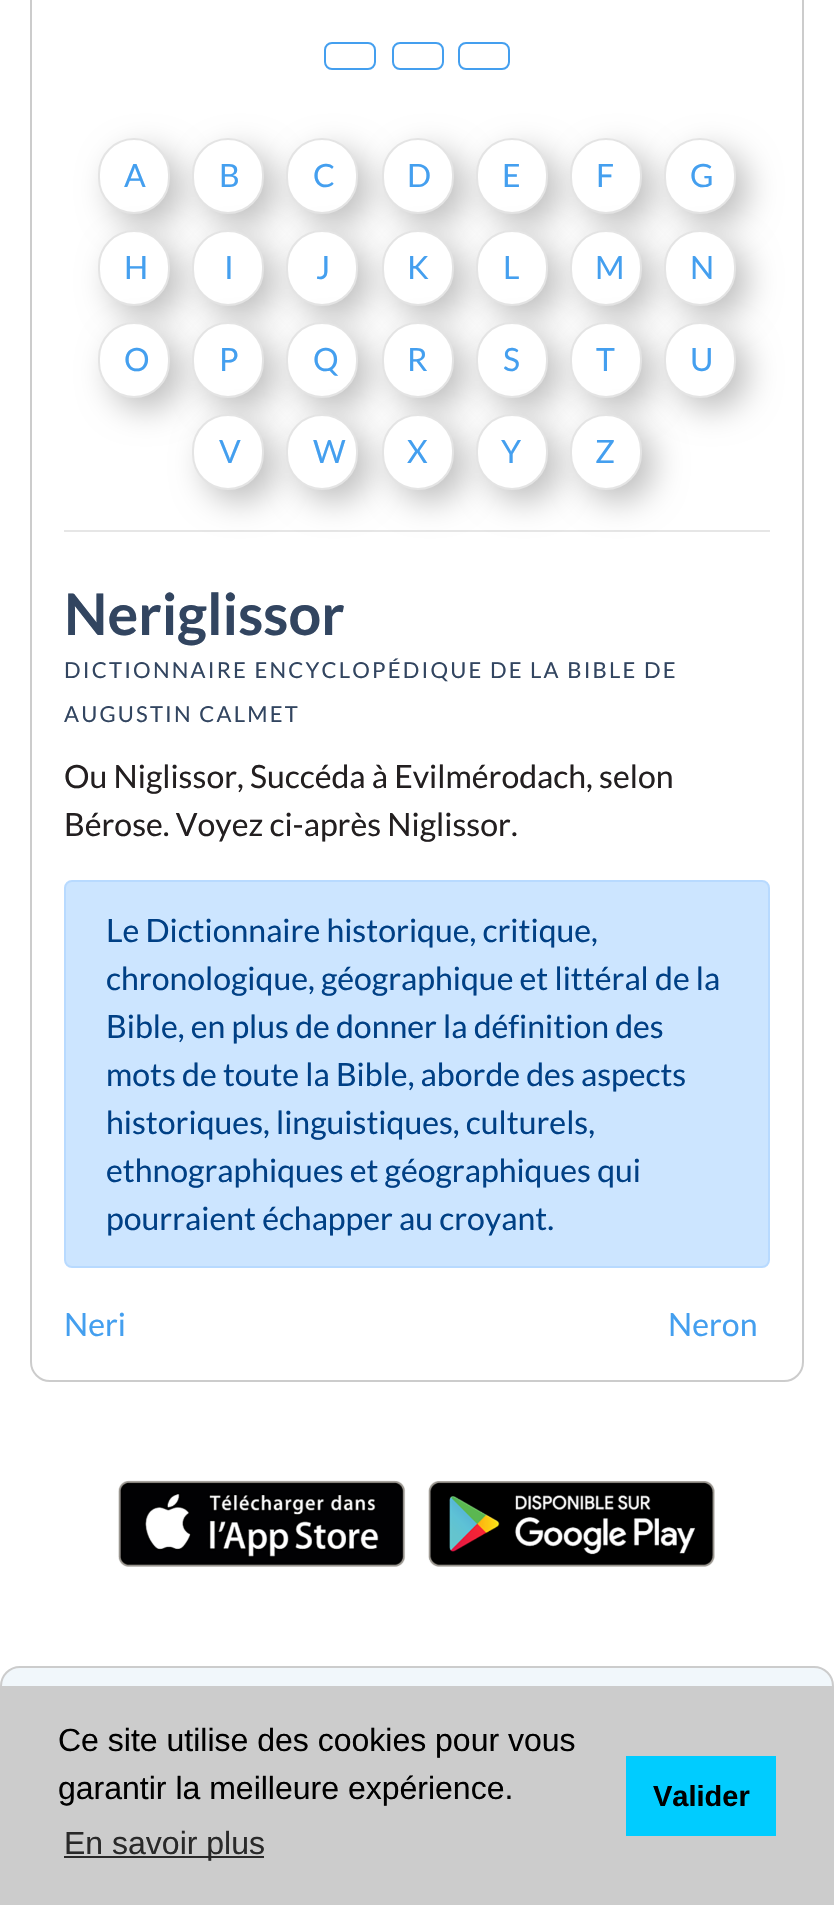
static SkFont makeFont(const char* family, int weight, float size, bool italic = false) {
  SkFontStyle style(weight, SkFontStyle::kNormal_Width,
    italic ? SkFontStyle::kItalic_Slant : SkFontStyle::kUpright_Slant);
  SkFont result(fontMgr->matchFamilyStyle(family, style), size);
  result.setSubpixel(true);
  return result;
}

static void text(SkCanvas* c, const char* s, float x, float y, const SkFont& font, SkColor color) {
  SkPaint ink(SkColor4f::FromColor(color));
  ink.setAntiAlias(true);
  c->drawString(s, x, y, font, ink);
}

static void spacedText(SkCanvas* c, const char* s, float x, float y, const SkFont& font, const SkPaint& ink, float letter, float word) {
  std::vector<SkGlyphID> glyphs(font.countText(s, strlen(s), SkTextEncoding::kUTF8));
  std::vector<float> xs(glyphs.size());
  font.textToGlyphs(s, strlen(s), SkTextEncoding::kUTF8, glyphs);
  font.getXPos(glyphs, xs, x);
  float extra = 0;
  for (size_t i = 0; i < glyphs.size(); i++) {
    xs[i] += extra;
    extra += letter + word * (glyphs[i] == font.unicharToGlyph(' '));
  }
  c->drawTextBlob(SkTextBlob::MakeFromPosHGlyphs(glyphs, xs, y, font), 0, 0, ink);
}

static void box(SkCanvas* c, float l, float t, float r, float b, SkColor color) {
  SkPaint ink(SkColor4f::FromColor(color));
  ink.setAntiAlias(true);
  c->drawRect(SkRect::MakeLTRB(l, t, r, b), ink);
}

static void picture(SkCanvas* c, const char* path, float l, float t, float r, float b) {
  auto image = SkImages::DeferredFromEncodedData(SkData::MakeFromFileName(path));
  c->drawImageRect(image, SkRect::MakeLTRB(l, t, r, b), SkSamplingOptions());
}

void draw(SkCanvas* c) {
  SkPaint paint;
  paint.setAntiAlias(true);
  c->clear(0xffffffff);
  paint.setStyle(SkPaint::kStroke_Style);
  paint.setStrokeWidth(2);
  paint.setColor(0xffcccccc);
  c->drawRoundRect(SkRect::MakeLTRB(31, -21, 803, 1381), 19, 19, paint);
  paint.setColor(0xff449fef);
  c->drawRoundRect(SkRect::MakeLTRB(325, 43, 375, 69), 7, 7, paint);
  c->drawRoundRect(SkRect::MakeLTRB(393, 43, 443, 69), 7, 7, paint);
  c->drawRoundRect(SkRect::MakeLTRB(459, 43, 509, 69), 7, 7, paint);
  paint.setStyle(SkPaint::kFill_Style);
  paint.setColor(0x40000000);
  paint.setMaskFilter(SkMaskFilter::MakeBlur(kNormal_SkBlurStyle, 16));
  c->drawRoundRect(SkRect::MakeLTRB(110, 150, 182, 226), 36, 36, paint);
  paint.setMaskFilter(nullptr);
  paint.setColor(0xffffffff);
  c->drawRoundRect(SkRect::MakeLTRB(99, 139, 169, 213), 35, 35, paint);
  paint.setStyle(SkPaint::kStroke_Style);
  paint.setColor(0xffe4e4e4);
  c->drawRoundRect(SkRect::MakeLTRB(99, 139, 169, 213), 35, 35, paint);
  SkFont face1 = makeFont("Lato", 400, 32);
  text(c, "A", 124, 187, face1, 0xff449fef);
  paint.setStyle(SkPaint::kFill_Style);
  paint.setColor(0x40000000);
  paint.setMaskFilter(SkMaskFilter::MakeBlur(kNormal_SkBlurStyle, 16));
  c->drawRoundRect(SkRect::MakeLTRB(204, 150, 276, 226), 36, 36, paint);
  paint.setMaskFilter(nullptr);
  paint.setColor(0xffffffff);
  c->drawRoundRect(SkRect::MakeLTRB(193, 139, 263, 213), 35, 35, paint);
  paint.setStyle(SkPaint::kStroke_Style);
  paint.setColor(0xffe4e4e4);
  c->drawRoundRect(SkRect::MakeLTRB(193, 139, 263, 213), 35, 35, paint);
  text(c, "B", 219, 187, face1, 0xff449fef);
  paint.setStyle(SkPaint::kFill_Style);
  paint.setColor(0x40000000);
  paint.setMaskFilter(SkMaskFilter::MakeBlur(kNormal_SkBlurStyle, 16));
  c->drawRoundRect(SkRect::MakeLTRB(298, 150, 370, 226), 36, 36, paint);
  paint.setMaskFilter(nullptr);
  paint.setColor(0xffffffff);
  c->drawRoundRect(SkRect::MakeLTRB(287, 139, 357, 213), 35, 35, paint);
  paint.setStyle(SkPaint::kStroke_Style);
  paint.setColor(0xffe4e4e4);
  c->drawRoundRect(SkRect::MakeLTRB(287, 139, 357, 213), 35, 35, paint);
  text(c, "C", 313, 187, face1, 0xff449fef);
  paint.setStyle(SkPaint::kFill_Style);
  paint.setColor(0x40000000);
  paint.setMaskFilter(SkMaskFilter::MakeBlur(kNormal_SkBlurStyle, 16));
  c->drawRoundRect(SkRect::MakeLTRB(394, 150, 466, 226), 36, 36, paint);
  paint.setMaskFilter(nullptr);
  paint.setColor(0xffffffff);
  c->drawRoundRect(SkRect::MakeLTRB(383, 139, 453, 213), 35, 35, paint);
  paint.setStyle(SkPaint::kStroke_Style);
  paint.setColor(0xffe4e4e4);
  c->drawRoundRect(SkRect::MakeLTRB(383, 139, 453, 213), 35, 35, paint);
  text(c, "D", 407, 187, face1, 0xff449fef);
  paint.setStyle(SkPaint::kFill_Style);
  paint.setColor(0x40000000);
  paint.setMaskFilter(SkMaskFilter::MakeBlur(kNormal_SkBlurStyle, 16));
  c->drawRoundRect(SkRect::MakeLTRB(488, 150, 560, 226), 36, 36, paint);
  paint.setMaskFilter(nullptr);
  paint.setColor(0xffffffff);
  c->drawRoundRect(SkRect::MakeLTRB(477, 139, 547, 213), 35, 35, paint);
  paint.setStyle(SkPaint::kStroke_Style);
  paint.setColor(0xffe4e4e4);
  c->drawRoundRect(SkRect::MakeLTRB(477, 139, 547, 213), 35, 35, paint);
  text(c, "E", 502, 187, face1, 0xff449fef);
  paint.setStyle(SkPaint::kFill_Style);
  paint.setColor(0x40000000);
  paint.setMaskFilter(SkMaskFilter::MakeBlur(kNormal_SkBlurStyle, 16));
  c->drawRoundRect(SkRect::MakeLTRB(582, 150, 654, 226), 36, 36, paint);
  paint.setMaskFilter(nullptr);
  paint.setColor(0xffffffff);
  c->drawRoundRect(SkRect::MakeLTRB(571, 139, 641, 213), 35, 35, paint);
  paint.setStyle(SkPaint::kStroke_Style);
  paint.setColor(0xffe4e4e4);
  c->drawRoundRect(SkRect::MakeLTRB(571, 139, 641, 213), 35, 35, paint);
  text(c, "F", 596, 187, face1, 0xff449fef);
  paint.setStyle(SkPaint::kFill_Style);
  paint.setColor(0x40000000);
  paint.setMaskFilter(SkMaskFilter::MakeBlur(kNormal_SkBlurStyle, 16));
  c->drawRoundRect(SkRect::MakeLTRB(676, 150, 748, 226), 36, 36, paint);
  paint.setMaskFilter(nullptr);
  paint.setColor(0xffffffff);
  c->drawRoundRect(SkRect::MakeLTRB(665, 139, 735, 213), 35, 35, paint);
  paint.setStyle(SkPaint::kStroke_Style);
  paint.setColor(0xffe4e4e4);
  c->drawRoundRect(SkRect::MakeLTRB(665, 139, 735, 213), 35, 35, paint);
  text(c, "G", 690, 187, face1, 0xff449fef);
  paint.setStyle(SkPaint::kFill_Style);
  paint.setColor(0x40000000);
  paint.setMaskFilter(SkMaskFilter::MakeBlur(kNormal_SkBlurStyle, 16));
  c->drawRoundRect(SkRect::MakeLTRB(110, 242, 182, 318), 36, 36, paint);
  paint.setMaskFilter(nullptr);
  paint.setColor(0xffffffff);
  c->drawRoundRect(SkRect::MakeLTRB(99, 231, 169, 305), 35, 35, paint);
  paint.setStyle(SkPaint::kStroke_Style);
  paint.setColor(0xffe4e4e4);
  c->drawRoundRect(SkRect::MakeLTRB(99, 231, 169, 305), 35, 35, paint);
  text(c, "H", 124, 279, face1, 0xff449fef);
  paint.setStyle(SkPaint::kFill_Style);
  paint.setColor(0x40000000);
  paint.setMaskFilter(SkMaskFilter::MakeBlur(kNormal_SkBlurStyle, 16));
  c->drawRoundRect(SkRect::MakeLTRB(204, 242, 276, 318), 36, 36, paint);
  paint.setMaskFilter(nullptr);
  paint.setColor(0xffffffff);
  c->drawRoundRect(SkRect::MakeLTRB(193, 231, 263, 305), 35, 35, paint);
  paint.setStyle(SkPaint::kStroke_Style);
  paint.setColor(0xffe4e4e4);
  c->drawRoundRect(SkRect::MakeLTRB(193, 231, 263, 305), 35, 35, paint);
  text(c, "I", 224, 279, face1, 0xff449fef);
  paint.setStyle(SkPaint::kFill_Style);
  paint.setColor(0x40000000);
  paint.setMaskFilter(SkMaskFilter::MakeBlur(kNormal_SkBlurStyle, 16));
  c->drawRoundRect(SkRect::MakeLTRB(298, 242, 370, 318), 36, 36, paint);
  paint.setMaskFilter(nullptr);
  paint.setColor(0xffffffff);
  c->drawRoundRect(SkRect::MakeLTRB(287, 231, 357, 305), 35, 35, paint);
  paint.setStyle(SkPaint::kStroke_Style);
  paint.setColor(0xffe4e4e4);
  c->drawRoundRect(SkRect::MakeLTRB(287, 231, 357, 305), 35, 35, paint);
  text(c, "J", 316, 279, face1, 0xff449fef);
  paint.setStyle(SkPaint::kFill_Style);
  paint.setColor(0x40000000);
  paint.setMaskFilter(SkMaskFilter::MakeBlur(kNormal_SkBlurStyle, 16));
  c->drawRoundRect(SkRect::MakeLTRB(394, 242, 466, 318), 36, 36, paint);
  paint.setMaskFilter(nullptr);
  paint.setColor(0xffffffff);
  c->drawRoundRect(SkRect::MakeLTRB(383, 231, 453, 305), 35, 35, paint);
  paint.setStyle(SkPaint::kStroke_Style);
  paint.setColor(0xffe4e4e4);
  c->drawRoundRect(SkRect::MakeLTRB(383, 231, 453, 305), 35, 35, paint);
  text(c, "K", 407, 279, face1, 0xff449fef);
  paint.setStyle(SkPaint::kFill_Style);
  paint.setColor(0x40000000);
  paint.setMaskFilter(SkMaskFilter::MakeBlur(kNormal_SkBlurStyle, 16));
  c->drawRoundRect(SkRect::MakeLTRB(488, 242, 560, 318), 36, 36, paint);
  paint.setMaskFilter(nullptr);
  paint.setColor(0xffffffff);
  c->drawRoundRect(SkRect::MakeLTRB(477, 231, 547, 305), 35, 35, paint);
  paint.setStyle(SkPaint::kStroke_Style);
  paint.setColor(0xffe4e4e4);
  c->drawRoundRect(SkRect::MakeLTRB(477, 231, 547, 305), 35, 35, paint);
  text(c, "L", 503, 279, face1, 0xff449fef);
  paint.setStyle(SkPaint::kFill_Style);
  paint.setColor(0x40000000);
  paint.setMaskFilter(SkMaskFilter::MakeBlur(kNormal_SkBlurStyle, 16));
  c->drawRoundRect(SkRect::MakeLTRB(582, 242, 654, 318), 36, 36, paint);
  paint.setMaskFilter(nullptr);
  paint.setColor(0xffffffff);
  c->drawRoundRect(SkRect::MakeLTRB(571, 231, 641, 305), 35, 35, paint);
  paint.setStyle(SkPaint::kStroke_Style);
  paint.setColor(0xffe4e4e4);
  c->drawRoundRect(SkRect::MakeLTRB(571, 231, 641, 305), 35, 35, paint);
  text(c, "M", 595, 279, face1, 0xff449fef);
  paint.setStyle(SkPaint::kFill_Style);
  paint.setColor(0x40000000);
  paint.setMaskFilter(SkMaskFilter::MakeBlur(kNormal_SkBlurStyle, 16));
  c->drawRoundRect(SkRect::MakeLTRB(676, 242, 748, 318), 36, 36, paint);
  paint.setMaskFilter(nullptr);
  paint.setColor(0xffffffff);
  c->drawRoundRect(SkRect::MakeLTRB(665, 231, 735, 305), 35, 35, paint);
  paint.setStyle(SkPaint::kStroke_Style);
  paint.setColor(0xffe4e4e4);
  c->drawRoundRect(SkRect::MakeLTRB(665, 231, 735, 305), 35, 35, paint);
  text(c, "N", 690, 279, face1, 0xff449fef);
  paint.setStyle(SkPaint::kFill_Style);
  paint.setColor(0x40000000);
  paint.setMaskFilter(SkMaskFilter::MakeBlur(kNormal_SkBlurStyle, 16));
  c->drawRoundRect(SkRect::MakeLTRB(110, 334, 182, 410), 36, 36, paint);
  paint.setMaskFilter(nullptr);
  paint.setColor(0xffffffff);
  c->drawRoundRect(SkRect::MakeLTRB(99, 323, 169, 397), 35, 35, paint);
  paint.setStyle(SkPaint::kStroke_Style);
  paint.setColor(0xffe4e4e4);
  c->drawRoundRect(SkRect::MakeLTRB(99, 323, 169, 397), 35, 35, paint);
  text(c, "O", 124, 371, face1, 0xff449fef);
  paint.setStyle(SkPaint::kFill_Style);
  paint.setColor(0x40000000);
  paint.setMaskFilter(SkMaskFilter::MakeBlur(kNormal_SkBlurStyle, 16));
  c->drawRoundRect(SkRect::MakeLTRB(204, 334, 276, 410), 36, 36, paint);
  paint.setMaskFilter(nullptr);
  paint.setColor(0xffffffff);
  c->drawRoundRect(SkRect::MakeLTRB(193, 323, 263, 397), 35, 35, paint);
  paint.setStyle(SkPaint::kStroke_Style);
  paint.setColor(0xffe4e4e4);
  c->drawRoundRect(SkRect::MakeLTRB(193, 323, 263, 397), 35, 35, paint);
  text(c, "P", 219, 371, face1, 0xff449fef);
  paint.setStyle(SkPaint::kFill_Style);
  paint.setColor(0x40000000);
  paint.setMaskFilter(SkMaskFilter::MakeBlur(kNormal_SkBlurStyle, 16));
  c->drawRoundRect(SkRect::MakeLTRB(298, 334, 370, 410), 36, 36, paint);
  paint.setMaskFilter(nullptr);
  paint.setColor(0xffffffff);
  c->drawRoundRect(SkRect::MakeLTRB(287, 323, 357, 397), 35, 35, paint);
  paint.setStyle(SkPaint::kStroke_Style);
  paint.setColor(0xffe4e4e4);
  c->drawRoundRect(SkRect::MakeLTRB(287, 323, 357, 397), 35, 35, paint);
  text(c, "Q", 313, 371, face1, 0xff449fef);
  paint.setStyle(SkPaint::kFill_Style);
  paint.setColor(0x40000000);
  paint.setMaskFilter(SkMaskFilter::MakeBlur(kNormal_SkBlurStyle, 16));
  c->drawRoundRect(SkRect::MakeLTRB(394, 334, 466, 410), 36, 36, paint);
  paint.setMaskFilter(nullptr);
  paint.setColor(0xffffffff);
  c->drawRoundRect(SkRect::MakeLTRB(383, 323, 453, 397), 35, 35, paint);
  paint.setStyle(SkPaint::kStroke_Style);
  paint.setColor(0xffe4e4e4);
  c->drawRoundRect(SkRect::MakeLTRB(383, 323, 453, 397), 35, 35, paint);
  text(c, "R", 407, 371, face1, 0xff449fef);
  paint.setStyle(SkPaint::kFill_Style);
  paint.setColor(0x40000000);
  paint.setMaskFilter(SkMaskFilter::MakeBlur(kNormal_SkBlurStyle, 16));
  c->drawRoundRect(SkRect::MakeLTRB(488, 334, 560, 410), 36, 36, paint);
  paint.setMaskFilter(nullptr);
  paint.setColor(0xffffffff);
  c->drawRoundRect(SkRect::MakeLTRB(477, 323, 547, 397), 35, 35, paint);
  paint.setStyle(SkPaint::kStroke_Style);
  paint.setColor(0xffe4e4e4);
  c->drawRoundRect(SkRect::MakeLTRB(477, 323, 547, 397), 35, 35, paint);
  text(c, "S", 503, 371, face1, 0xff449fef);
  paint.setStyle(SkPaint::kFill_Style);
  paint.setColor(0x40000000);
  paint.setMaskFilter(SkMaskFilter::MakeBlur(kNormal_SkBlurStyle, 16));
  c->drawRoundRect(SkRect::MakeLTRB(582, 334, 654, 410), 36, 36, paint);
  paint.setMaskFilter(nullptr);
  paint.setColor(0xffffffff);
  c->drawRoundRect(SkRect::MakeLTRB(571, 323, 641, 397), 35, 35, paint);
  paint.setStyle(SkPaint::kStroke_Style);
  paint.setColor(0xffe4e4e4);
  c->drawRoundRect(SkRect::MakeLTRB(571, 323, 641, 397), 35, 35, paint);
  text(c, "T", 596, 371, face1, 0xff449fef);
  paint.setStyle(SkPaint::kFill_Style);
  paint.setColor(0x40000000);
  paint.setMaskFilter(SkMaskFilter::MakeBlur(kNormal_SkBlurStyle, 16));
  c->drawRoundRect(SkRect::MakeLTRB(676, 334, 748, 410), 36, 36, paint);
  paint.setMaskFilter(nullptr);
  paint.setColor(0xffffffff);
  c->drawRoundRect(SkRect::MakeLTRB(665, 323, 735, 397), 35, 35, paint);
  paint.setStyle(SkPaint::kStroke_Style);
  paint.setColor(0xffe4e4e4);
  c->drawRoundRect(SkRect::MakeLTRB(665, 323, 735, 397), 35, 35, paint);
  text(c, "U", 690, 371, face1, 0xff449fef);
  box(c, 64, 530, 770, 532, 0xffe6e6e6);
  paint.setStyle(SkPaint::kFill_Style);
  paint.setColor(0x40000000);
  paint.setMaskFilter(SkMaskFilter::MakeBlur(kNormal_SkBlurStyle, 16));
  c->drawRoundRect(SkRect::MakeLTRB(204, 426, 276, 502), 36, 36, paint);
  paint.setMaskFilter(nullptr);
  paint.setColor(0xffffffff);
  c->drawRoundRect(SkRect::MakeLTRB(193, 415, 263, 489), 35, 35, paint);
  paint.setStyle(SkPaint::kStroke_Style);
  paint.setColor(0xffe4e4e4);
  c->drawRoundRect(SkRect::MakeLTRB(193, 415, 263, 489), 35, 35, paint);
  text(c, "V", 219, 463, face1, 0xff449fef);
  paint.setStyle(SkPaint::kFill_Style);
  paint.setColor(0x40000000);
  paint.setMaskFilter(SkMaskFilter::MakeBlur(kNormal_SkBlurStyle, 16));
  c->drawRoundRect(SkRect::MakeLTRB(298, 426, 370, 502), 36, 36, paint);
  paint.setMaskFilter(nullptr);
  paint.setColor(0xffffffff);
  c->drawRoundRect(SkRect::MakeLTRB(287, 415, 357, 489), 35, 35, paint);
  paint.setStyle(SkPaint::kStroke_Style);
  paint.setColor(0xffe4e4e4);
  c->drawRoundRect(SkRect::MakeLTRB(287, 415, 357, 489), 35, 35, paint);
  text(c, "W", 313, 463, face1, 0xff449fef);
  paint.setStyle(SkPaint::kFill_Style);
  paint.setColor(0x40000000);
  paint.setMaskFilter(SkMaskFilter::MakeBlur(kNormal_SkBlurStyle, 16));
  c->drawRoundRect(SkRect::MakeLTRB(394, 426, 466, 502), 36, 36, paint);
  paint.setMaskFilter(nullptr);
  paint.setColor(0xffffffff);
  c->drawRoundRect(SkRect::MakeLTRB(383, 415, 453, 489), 35, 35, paint);
  paint.setStyle(SkPaint::kStroke_Style);
  paint.setColor(0xffe4e4e4);
  c->drawRoundRect(SkRect::MakeLTRB(383, 415, 453, 489), 35, 35, paint);
  text(c, "X", 407, 463, face1, 0xff449fef);
  paint.setStyle(SkPaint::kFill_Style);
  paint.setColor(0x40000000);
  paint.setMaskFilter(SkMaskFilter::MakeBlur(kNormal_SkBlurStyle, 16));
  c->drawRoundRect(SkRect::MakeLTRB(488, 426, 560, 502), 36, 36, paint);
  paint.setMaskFilter(nullptr);
  paint.setColor(0xffffffff);
  c->drawRoundRect(SkRect::MakeLTRB(477, 415, 547, 489), 35, 35, paint);
  paint.setStyle(SkPaint::kStroke_Style);
  paint.setColor(0xffe4e4e4);
  c->drawRoundRect(SkRect::MakeLTRB(477, 415, 547, 489), 35, 35, paint);
  text(c, "Y", 501, 463, face1, 0xff449fef);
  paint.setStyle(SkPaint::kFill_Style);
  paint.setColor(0x40000000);
  paint.setMaskFilter(SkMaskFilter::MakeBlur(kNormal_SkBlurStyle, 16));
  c->drawRoundRect(SkRect::MakeLTRB(582, 426, 654, 502), 36, 36, paint);
  paint.setMaskFilter(nullptr);
  paint.setColor(0xffffffff);
  c->drawRoundRect(SkRect::MakeLTRB(571, 415, 641, 489), 35, 35, paint);
  paint.setStyle(SkPaint::kStroke_Style);
  paint.setColor(0xffe4e4e4);
  c->drawRoundRect(SkRect::MakeLTRB(571, 415, 641, 489), 35, 35, paint);
  text(c, "Z", 595, 463, face1, 0xff449fef);
  SkFont face2 = makeFont("Lato", 700, 57.5f);
  text(c, "Neriglissor", 64, 635, face2, 0xff324560);
  SkFont face3 = makeFont("Lato", 400, 22);
  paint.setStyle(SkPaint::kFill_Style);
  paint.setColor(0xff324560);
  spacedText(c, "DICTIONNAIRE ENCYCLOPÉDIQUE DE LA BIBLE DE", 64, 678, face3, paint, 2.2f, 0);
  spacedText(c, "AUGUSTIN CALMET", 64, 722, face3, paint, 2.2f, 0);
  text(c, "Ou Niglissor, Succéda à Evilmérodach, selon", 64, 788, face1, 0xff231f20);
  text(c, "Bérose. Voyez ci-après Niglissor.", 64, 836, face1, 0xff231f20);
  paint.setColor(0xffcce5ff);
  c->drawRoundRect(SkRect::MakeLTRB(65, 881, 769, 1267), 7, 7, paint);
  paint.setStyle(SkPaint::kStroke_Style);
  paint.setColor(0xffb8daff);
  c->drawRoundRect(SkRect::MakeLTRB(65, 881, 769, 1267), 7, 7, paint);
  text(c, "Le Dictionnaire historique, critique,", 106, 942, face1, 0xff004085);
  text(c, "chronologique, géographique et littéral de la", 106, 990, face1, 0xff004085);
  text(c, "Bible, en plus de donner la définition des", 106, 1038, face1, 0xff004085);
  text(c, "mots de toute la Bible, aborde des aspects", 106, 1086, face1, 0xff004085);
  text(c, "historiques, linguistiques, culturels,", 106, 1134, face1, 0xff004085);
  text(c, "ethnographiques et géographiques qui", 106, 1182, face1, 0xff004085);
  text(c, "pourraient échapper au croyant.", 106, 1230, face1, 0xff004085);
  text(c, "Neri", 64, 1336, face1, 0xff449fef);
  text(c, "Neron", 668, 1336, face1, 0xff449fef);
  picture(c, "img_01.png", 118, 1480, 715, 1567);
  paint.setStyle(SkPaint::kFill_Style);
  paint.setColor(0xfff1f7fb);
  c->drawRoundRect(SkRect::MakeLTRB(1, 1667, 833, 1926), 19, 19, paint);
  paint.setStyle(SkPaint::kStroke_Style);
  paint.setColor(0xffcccccc);
  c->drawRoundRect(SkRect::MakeLTRB(1, 1667, 833, 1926), 19, 19, paint);
  box(c, 2, 1686, 832, 1905, 0xffcccccc);
  SkFont face4 = makeFont("Liberation Sans", 400, 32);
  text(c, "Ce site utilise des cookies pour vous", 58, 1751, face4, 0xff000000);
  text(c, "garantir la meilleure expérience.", 58, 1799, face4, 0xff000000);
  box(c, 64, 1856, 264, 1858, 0xff292929);
  text(c, "En savoir plus", 64, 1854, face4, 0xff292929);
  box(c, 626, 1756, 776, 1836, 0xff00ccff);
  SkFont face5 = makeFont("Liberation Sans", 700, 29);
  text(c, "Valider", 653, 1806, face5, 0xff000000);
}
